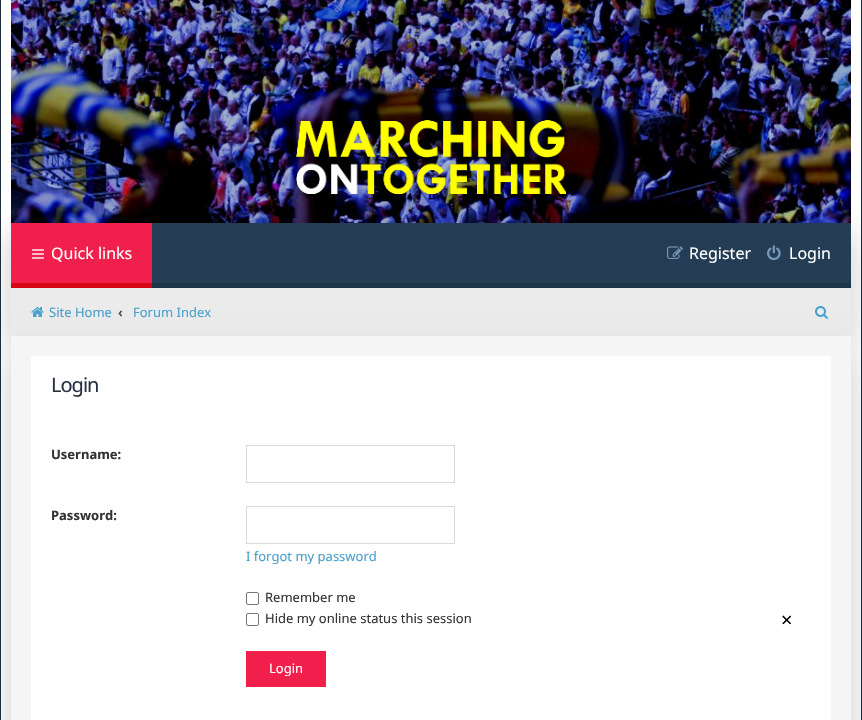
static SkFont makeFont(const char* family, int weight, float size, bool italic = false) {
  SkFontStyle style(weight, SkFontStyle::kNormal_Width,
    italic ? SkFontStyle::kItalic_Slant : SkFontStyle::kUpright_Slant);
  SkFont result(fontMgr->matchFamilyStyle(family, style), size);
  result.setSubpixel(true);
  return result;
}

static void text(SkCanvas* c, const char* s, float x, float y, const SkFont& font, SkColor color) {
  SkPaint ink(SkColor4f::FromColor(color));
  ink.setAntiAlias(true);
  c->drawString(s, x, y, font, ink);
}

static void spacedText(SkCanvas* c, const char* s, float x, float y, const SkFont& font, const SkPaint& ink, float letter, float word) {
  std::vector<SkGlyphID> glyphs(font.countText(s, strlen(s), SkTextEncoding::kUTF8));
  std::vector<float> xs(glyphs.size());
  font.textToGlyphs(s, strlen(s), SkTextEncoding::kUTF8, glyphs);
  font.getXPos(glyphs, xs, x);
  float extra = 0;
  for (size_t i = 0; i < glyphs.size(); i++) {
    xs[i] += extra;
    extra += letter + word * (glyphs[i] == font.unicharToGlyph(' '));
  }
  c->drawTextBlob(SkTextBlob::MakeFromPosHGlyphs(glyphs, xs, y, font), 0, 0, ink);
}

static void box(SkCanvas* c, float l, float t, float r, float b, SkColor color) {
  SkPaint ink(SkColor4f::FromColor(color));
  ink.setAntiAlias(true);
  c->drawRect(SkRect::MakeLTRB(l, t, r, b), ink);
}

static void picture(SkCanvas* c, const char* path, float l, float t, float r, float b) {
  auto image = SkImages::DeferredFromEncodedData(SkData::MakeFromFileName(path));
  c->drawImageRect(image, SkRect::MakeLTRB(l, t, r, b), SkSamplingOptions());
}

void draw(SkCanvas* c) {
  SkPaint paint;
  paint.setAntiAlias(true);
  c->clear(0xffffffff);
  box(c, 861, 0, 862, 720, 0xff1e2e3d);
  box(c, 0, 0, 1, 720, 0xff1e2e3d);
  picture(c, "img_01.png", 11, 0, 851, 223);
  paint.setColor(0x33000000);
  paint.setMaskFilter(SkMaskFilter::MakeBlur(kNormal_SkBlurStyle, 15));
  c->drawRect(SkRect::MakeLTRB(11, 233, 851, 346), paint);
  paint.setMaskFilter(nullptr);
  picture(c, "img_02.png", 296, 120, 566, 194);
  box(c, 152, 223, 851, 283, 0xff243d54);
  box(c, 152, 283, 851, 288, 0xff1e3449);
  box(c, 11, 223, 152, 283, 0xfff01f4b);
  box(c, 11, 283, 152, 288, 0xffd70615);
  picture(c, "img_03.png", 32, 249, 44, 259);
  SkFont face1 = makeFont("Noto Sans", 400, 16);
  text(c, "Quick links", 51, 259, face1, 0xffffffff);
  picture(c, "img_04.png", 667, 246, 683, 259);
  text(c, "Register", 689, 259, face1, 0xffffffff);
  picture(c, "img_05.png", 767, 245, 781, 261);
  text(c, "Login", 789, 259, face1, 0xffffffff);
  box(c, 11, 288, 851, 336, 0xffebebeb);
  paint.setMaskFilter(SkMaskFilter::MakeBlur(kNormal_SkBlurStyle, 15));
  c->drawRect(SkRect::MakeLTRB(11, 356, 851, 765), paint);
  paint.setMaskFilter(nullptr);
  picture(c, "img_06.png", 31, 307, 44, 317);
  SkFont face2 = makeFont("Noto Sans", 400, 13);
  text(c, "Site Home", 49, 317, face2, 0xff49a0cc);
  SkFont face3 = makeFont("Noto Sans", 700, 13);
  text(c, "‹", 118, 317, face3, 0xff555555);
  text(c, "Forum Index", 133, 317, face2, 0xff49a0cc);
  picture(c, "img_07.png", 815, 306, 828, 319);
  box(c, 11, 336, 851, 720, 0xfff5f5f5);
  box(c, 31, 356, 831, 720, 0xffffffff);
  SkFont face4 = makeFont("Noto Sans", 400, 20);
  paint.setColor(0xff28313f);
  spacedText(c, "Login", 51, 392, face4, paint, -1, 0);
  text(c, "Username:", 51, 459, face3, 0xff333333);
  paint.setStyle(SkPaint::kStroke_Style);
  paint.setStrokeWidth(1);
  paint.setColor(0xffdadada);
  c->drawRect(SkRect::MakeLTRB(246.5f, 445.5f, 454.5f, 482.5f), paint);
  text(c, "Password:", 51, 520, face3, 0xff333333);
  c->drawRect(SkRect::MakeLTRB(246.5f, 506.5f, 454.5f, 543.5f), paint);
  text(c, "I forgot my password", 246, 561, face2, 0xff49a0cc);
  paint.setColor(0xff767676);
  c->drawRoundRect(SkRect::MakeLTRB(246.5f, 592.5f, 258.5f, 604.5f), 1.5f, 1.5f, paint);
  text(c, "Remember me", 265, 602, face2, 0xff333333);
  c->drawRoundRect(SkRect::MakeLTRB(246.5f, 613.5f, 258.5f, 625.5f), 1.5f, 1.5f, paint);
  text(c, "Hide my online status this session", 265, 623, face2, 0xff333333);
  box(c, 246, 651, 326, 687, 0xfff01f4b);
  text(c, "Login", 269, 673, face2, 0xffffffff);
  text(c, "×", 781, 627, face4, 0xff000000);
}
